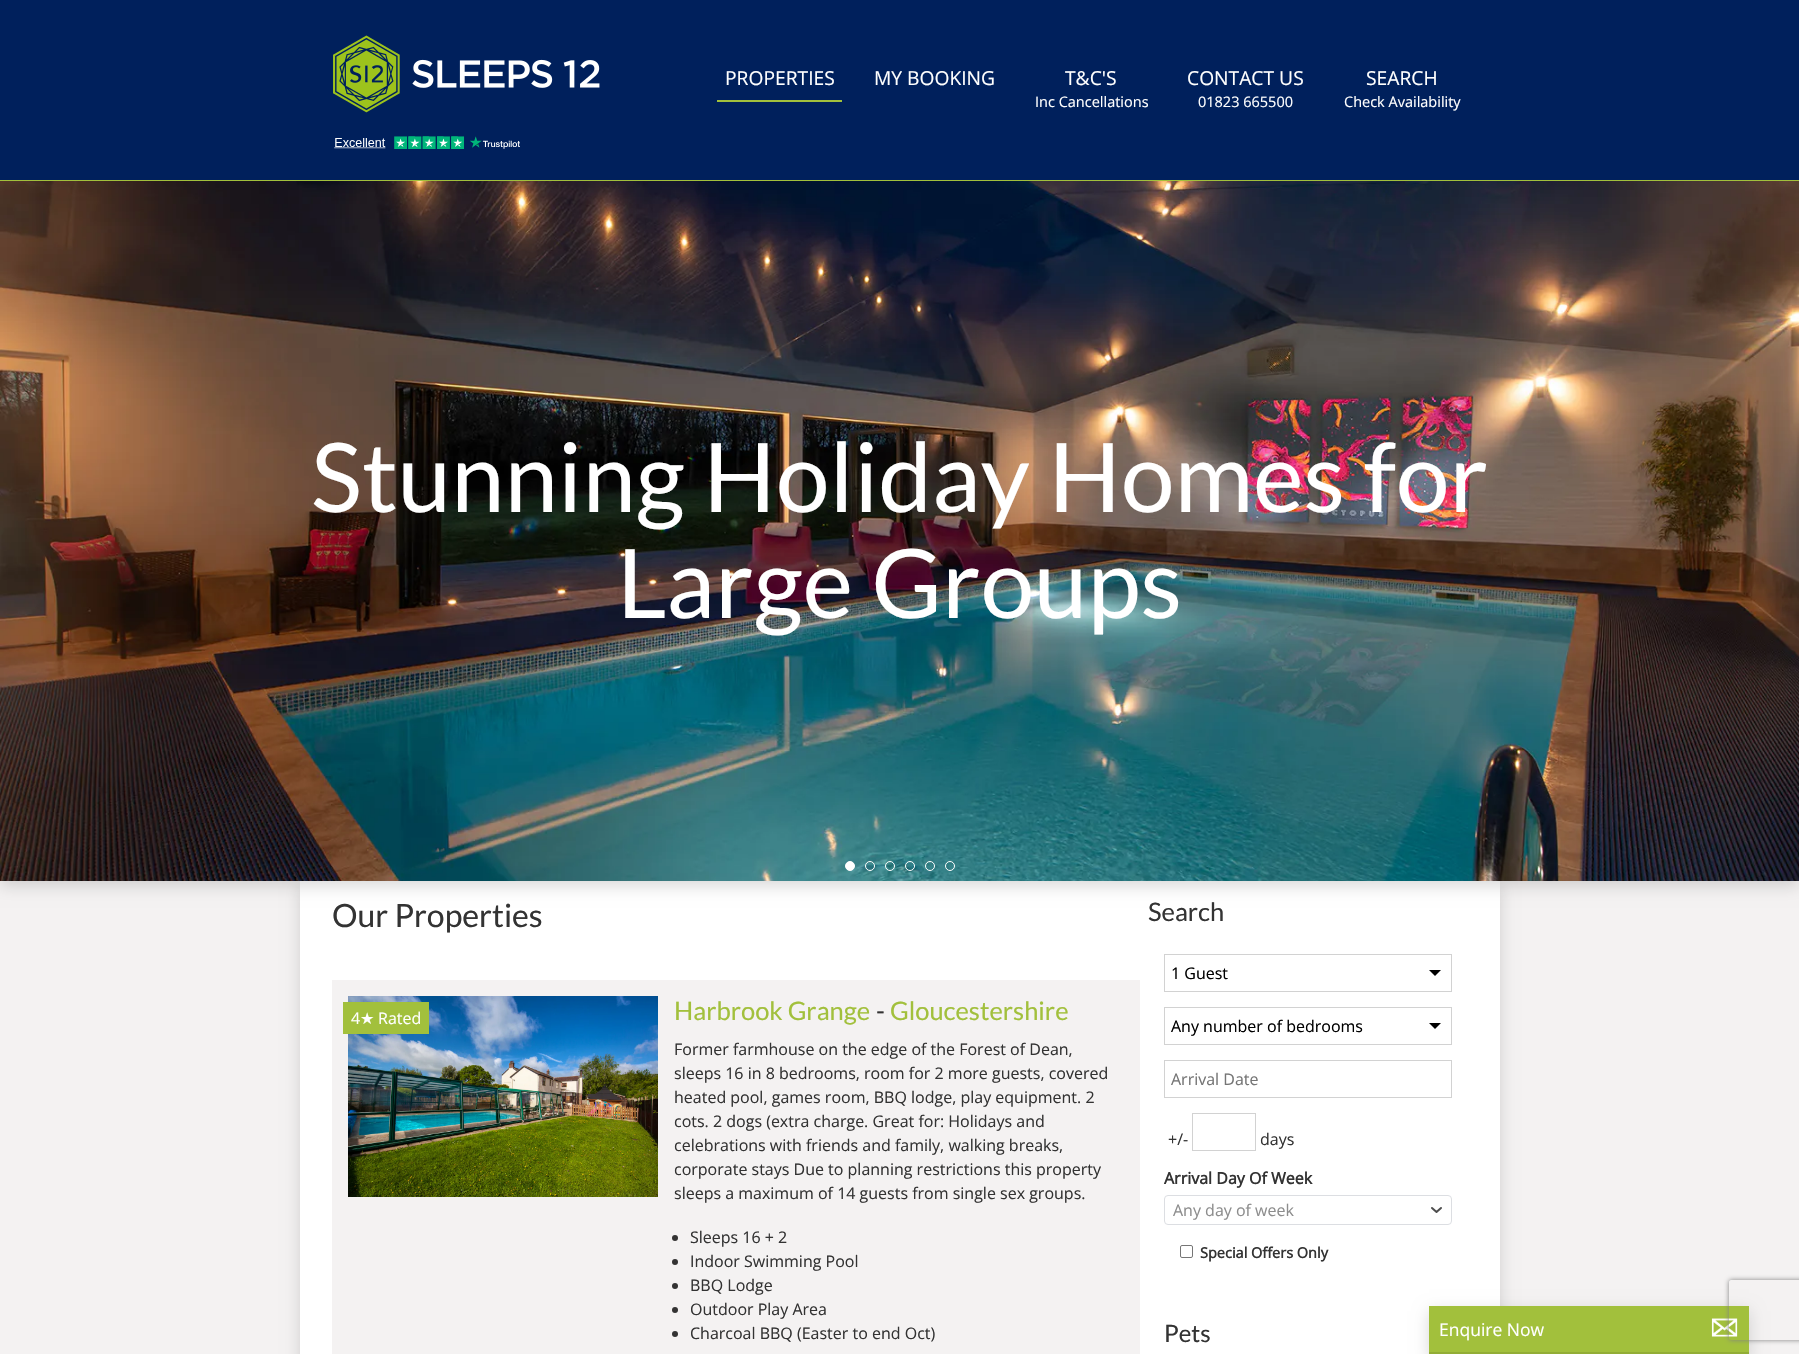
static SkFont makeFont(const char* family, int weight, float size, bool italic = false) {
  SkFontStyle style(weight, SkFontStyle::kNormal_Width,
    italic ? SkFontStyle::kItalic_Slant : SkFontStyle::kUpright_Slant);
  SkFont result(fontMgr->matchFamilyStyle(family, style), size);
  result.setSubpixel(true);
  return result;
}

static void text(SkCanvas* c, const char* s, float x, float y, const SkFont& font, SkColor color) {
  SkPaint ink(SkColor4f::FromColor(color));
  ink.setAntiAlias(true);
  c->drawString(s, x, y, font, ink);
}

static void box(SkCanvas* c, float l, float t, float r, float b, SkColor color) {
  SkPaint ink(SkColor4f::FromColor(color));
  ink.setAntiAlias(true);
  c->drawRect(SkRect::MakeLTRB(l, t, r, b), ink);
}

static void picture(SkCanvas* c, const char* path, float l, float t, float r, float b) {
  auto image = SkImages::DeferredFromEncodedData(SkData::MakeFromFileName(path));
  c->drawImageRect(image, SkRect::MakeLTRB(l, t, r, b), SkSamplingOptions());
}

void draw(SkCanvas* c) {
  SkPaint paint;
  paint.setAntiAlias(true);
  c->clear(0xfff4f2f2);
  paint.setColor(0x26000000);
  paint.setMaskFilter(SkMaskFilter::MakeBlur(kNormal_SkBlurStyle, 7.5f));
  c->drawRect(SkRect::MakeLTRB(300, 886, 1500, 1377), paint);
  paint.setMaskFilter(nullptr);
  box(c, 300, 881, 1500, 1354, 0xffffffff);
  paint.setMaskFilter(SkMaskFilter::MakeBlur(kNormal_SkBlurStyle, 7.5f));
  c->drawRect(SkRect::MakeLTRB(0, 186, 1799, 886), paint);
  paint.setMaskFilter(nullptr);
  box(c, 0, 0, 1799, 180, 0xff00205c);
  box(c, 0, 180, 1799, 181, 0xffa2c03c);
  picture(c, "img_01.png", 333, 35, 600, 113);
  picture(c, "img_02.png", 334, 136, 520, 149);
  box(c, 717, 100, 842, 102, 0xffa2c03c);
  SkFont face1 = makeFont("Open Sans", 400, 19.25f);
  text(c, "PROPERTIES", 725, 85, face1, 0xffffffff);
  text(c, "MY BOOKING", 874, 85, face1, 0xffffffff);
  text(c, "T&C'S", 1065, 85, face1, 0xffffffff);
  SkFont face2 = makeFont("Open Sans", 400, 14.5f);
  text(c, "Inc Cancellations", 1035, 107, face2, 0xffffffff);
  text(c, "CONTACT US", 1187, 85, face1, 0xffffffff);
  text(c, "01823 665500", 1198, 107, face2, 0xffffffff);
  text(c, "SEARCH", 1366, 85, face1, 0xffffffff);
  text(c, "Check Availability", 1344, 107, face2, 0xffffffff);
  picture(c, "img_03.png", 0, 181, 1799, 881);
  SkFont face3 = makeFont("Lato", 400, 96);
  text(c, "Stunning Holiday Homes for", 311, 512, face3, 0xffffffff);
  text(c, "Large Groups", 617, 618, face3, 0xffffffff);
  paint.setColor(0xffffffff);
  c->drawCircle(850, 866, 4.5f, paint);
  paint.setStyle(SkPaint::kStroke_Style);
  paint.setStrokeWidth(1);
  c->drawCircle(850, 866, 4.5f, paint);
  c->drawCircle(870, 866, 4.5f, paint);
  c->drawCircle(890, 866, 4.5f, paint);
  c->drawCircle(910, 866, 4.5f, paint);
  c->drawCircle(930, 866, 4.5f, paint);
  c->drawCircle(950, 866, 4.5f, paint);
  SkFont face4 = makeFont("Lato", 400, 32);
  text(c, "Our Properties", 332, 927, face4, 0xff333333);
  box(c, 332, 980, 1140, 1354, 0xfff4f2f2);
  picture(c, "img_04.png", 348, 996, 658, 1197);
  box(c, 343, 1002, 429, 1034, 0xffa2c03c);
  SkFont face5 = makeFont("Open Sans", 400, 16);
  text(c, "4", 351, 1024, face5, 0xffffffff);
  SkFont face6 = makeFont("DejaVu Sans", 400, 16);
  text(c, "★", 360, 1024, face6, 0xffffffff);
  text(c, "Rated", 378, 1024, face5, 0xffffffff);
  SkFont face7 = makeFont("Lato", 400, 25.5f);
  text(c, "Harbrook Grange", 674, 1020, face7, 0xffa2c03c);
  text(c, "-", 876, 1020, face7, 0xff333333);
  text(c, "Gloucestershire", 890, 1020, face7, 0xffa2c03c);
  text(c, "Former farmhouse on the edge of the Forest of Dean,", 674, 1055, face5, 0xff333333);
  text(c, "sleeps 16 in 8 bedrooms, room for 2 more guests, covered", 674, 1079, face5, 0xff333333);
  text(c, "heated pool, games room, BBQ lodge, play equipment. 2", 674, 1103, face5, 0xff333333);
  text(c, "cots. 2 dogs (extra charge. Great for: Holidays and", 674, 1127, face5, 0xff333333);
  text(c, "celebrations with friends and family, walking breaks,", 674, 1151, face5, 0xff333333);
  text(c, "corporate stays Due to planning restrictions this property", 674, 1175, face5, 0xff333333);
  text(c, "sleeps a maximum of 14 guests from single sex groups.", 674, 1199, face5, 0xff333333);
  paint.setStyle(SkPaint::kFill_Style);
  paint.setColor(0xff333333);
  c->drawCircle(675, 1238, 3, paint);
  text(c, "Sleeps 16 + 2", 690, 1243, face5, 0xff333333);
  c->drawCircle(675, 1262, 3, paint);
  text(c, "Indoor Swimming Pool", 690, 1267, face5, 0xff333333);
  c->drawCircle(675, 1286, 3, paint);
  text(c, "BBQ Lodge", 690, 1291, face5, 0xff333333);
  c->drawCircle(675, 1310, 3, paint);
  text(c, "Outdoor Play Area", 690, 1315, face5, 0xff333333);
  c->drawCircle(675, 1334, 3, paint);
  text(c, "Charcoal BBQ (Easter to end Oct)", 690, 1339, face5, 0xff333333);
  text(c, "Search", 1148, 921, face7, 0xff333333);
  paint.setColor(0xff000000);
  c->drawPath(SkPathBuilder().moveTo(1429, 970).lineTo(1435, 976).lineTo(1441, 970).close().detach(), paint);
  paint.setStyle(SkPaint::kStroke_Style);
  paint.setColor(0xffd2d2d2);
  c->drawRect(SkRect::MakeLTRB(1164.5f, 954.5f, 1451.5f, 991.5f), paint);
  text(c, "1 Guest", 1171, 979, face5, 0xff000000);
  paint.setStyle(SkPaint::kFill_Style);
  paint.setColor(0xff000000);
  c->drawPath(SkPathBuilder().moveTo(1429, 1023).lineTo(1435, 1029).lineTo(1441, 1023).close().detach(), paint);
  paint.setStyle(SkPaint::kStroke_Style);
  paint.setColor(0xffd2d2d2);
  c->drawRect(SkRect::MakeLTRB(1164.5f, 1007.5f, 1451.5f, 1044.5f), paint);
  text(c, "Any number of bedrooms", 1171, 1032, face5, 0xff000000);
  c->drawRect(SkRect::MakeLTRB(1164.5f, 1060.5f, 1451.5f, 1097.5f), paint);
  text(c, "Arrival Date", 1171, 1085, face5, 0xff757575);
  text(c, "+/-", 1168, 1145, face5, 0xff333333);
  c->drawRect(SkRect::MakeLTRB(1192.5f, 1113.5f, 1255.5f, 1150.5f), paint);
  text(c, "days", 1260, 1145, face5, 0xff333333);
  SkFont face8 = makeFont("Open Sans", 700, 16);
  text(c, "Arrival Day Of Week", 1164, 1184, face8, 0xff333333);
  paint.setColor(0xffdcdee2);
  c->drawRoundRect(SkRect::MakeLTRB(1164.5f, 1195.5f, 1451.5f, 1224.5f), 3.5f, 3.5f, paint);
  text(c, "Any day of week", 1173, 1216, face5, 0xff8d8d8d);
  paint.setStrokeWidth(2);
  paint.setStrokeCap(SkPaint::kRound_Cap);
  paint.setStrokeJoin(SkPaint::kRound_Join);
  paint.setColor(0xff4d4d4d);
  c->drawPath(SkPathBuilder().moveTo(1432, 1208).lineTo(1436.5f, 1212).lineTo(1441, 1208).detach(), paint);
  paint.setStrokeWidth(1);
  paint.setStrokeCap(SkPaint::kButt_Cap);
  paint.setStrokeJoin(SkPaint::kMiter_Join);
  paint.setColor(0xff767676);
  c->drawRoundRect(SkRect::MakeLTRB(1180.5f, 1245.5f, 1192.5f, 1257.5f), 1.5f, 1.5f, paint);
  SkFont face9 = makeFont("Open Sans", 700, 14.5f);
  text(c, "Special Offers Only", 1200, 1258, face9, 0xff333333);
  SkFont face10 = makeFont("Lato", 400, 24);
  text(c, "Pets", 1164, 1342, face10, 0xff333333);
  paint.setStyle(SkPaint::kFill_Style);
  paint.setColor(0x26000000);
  paint.setMaskFilter(SkMaskFilter::MakeBlur(kNormal_SkBlurStyle, 7.5f));
  c->drawRect(SkRect::MakeLTRB(1429, 1311, 1749, 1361), paint);
  paint.setMaskFilter(nullptr);
  box(c, 1429, 1306, 1749, 1352, 0xffa2c03c);
  box(c, 1429, 1352, 1749, 1354, 0xff92ad36);
  SkFont face11 = makeFont("Open Sans", 400, 17.5f);
  text(c, "Enquire Now", 1439, 1336, face11, 0xffffffff);
  picture(c, "img_05.png", 1711, 1318, 1738, 1337);
  c->save();
  c->clipPath(SkPathBuilder(SkPathFillType::kEvenOdd).moveTo(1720, 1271).lineTo(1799, 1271).lineTo(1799, 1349).lineTo(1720, 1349).close().moveTo(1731, 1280).lineTo(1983, 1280).cubicTo(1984, 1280, 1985, 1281, 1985, 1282).lineTo(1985, 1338).cubicTo(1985, 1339, 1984, 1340, 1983, 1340).lineTo(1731, 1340).cubicTo(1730, 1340, 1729, 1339, 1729, 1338).lineTo(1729, 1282).cubicTo(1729, 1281, 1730, 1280, 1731, 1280).close().detach(), true);
  paint.setColor(0xff808080);
  paint.setMaskFilter(SkMaskFilter::MakeBlur(kNormal_SkBlurStyle, 2.5f));
  c->drawRoundRect(SkRect::MakeLTRB(1729, 1280, 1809, 1340), 2, 2, paint);
  paint.setMaskFilter(nullptr);
  c->restore();
}
